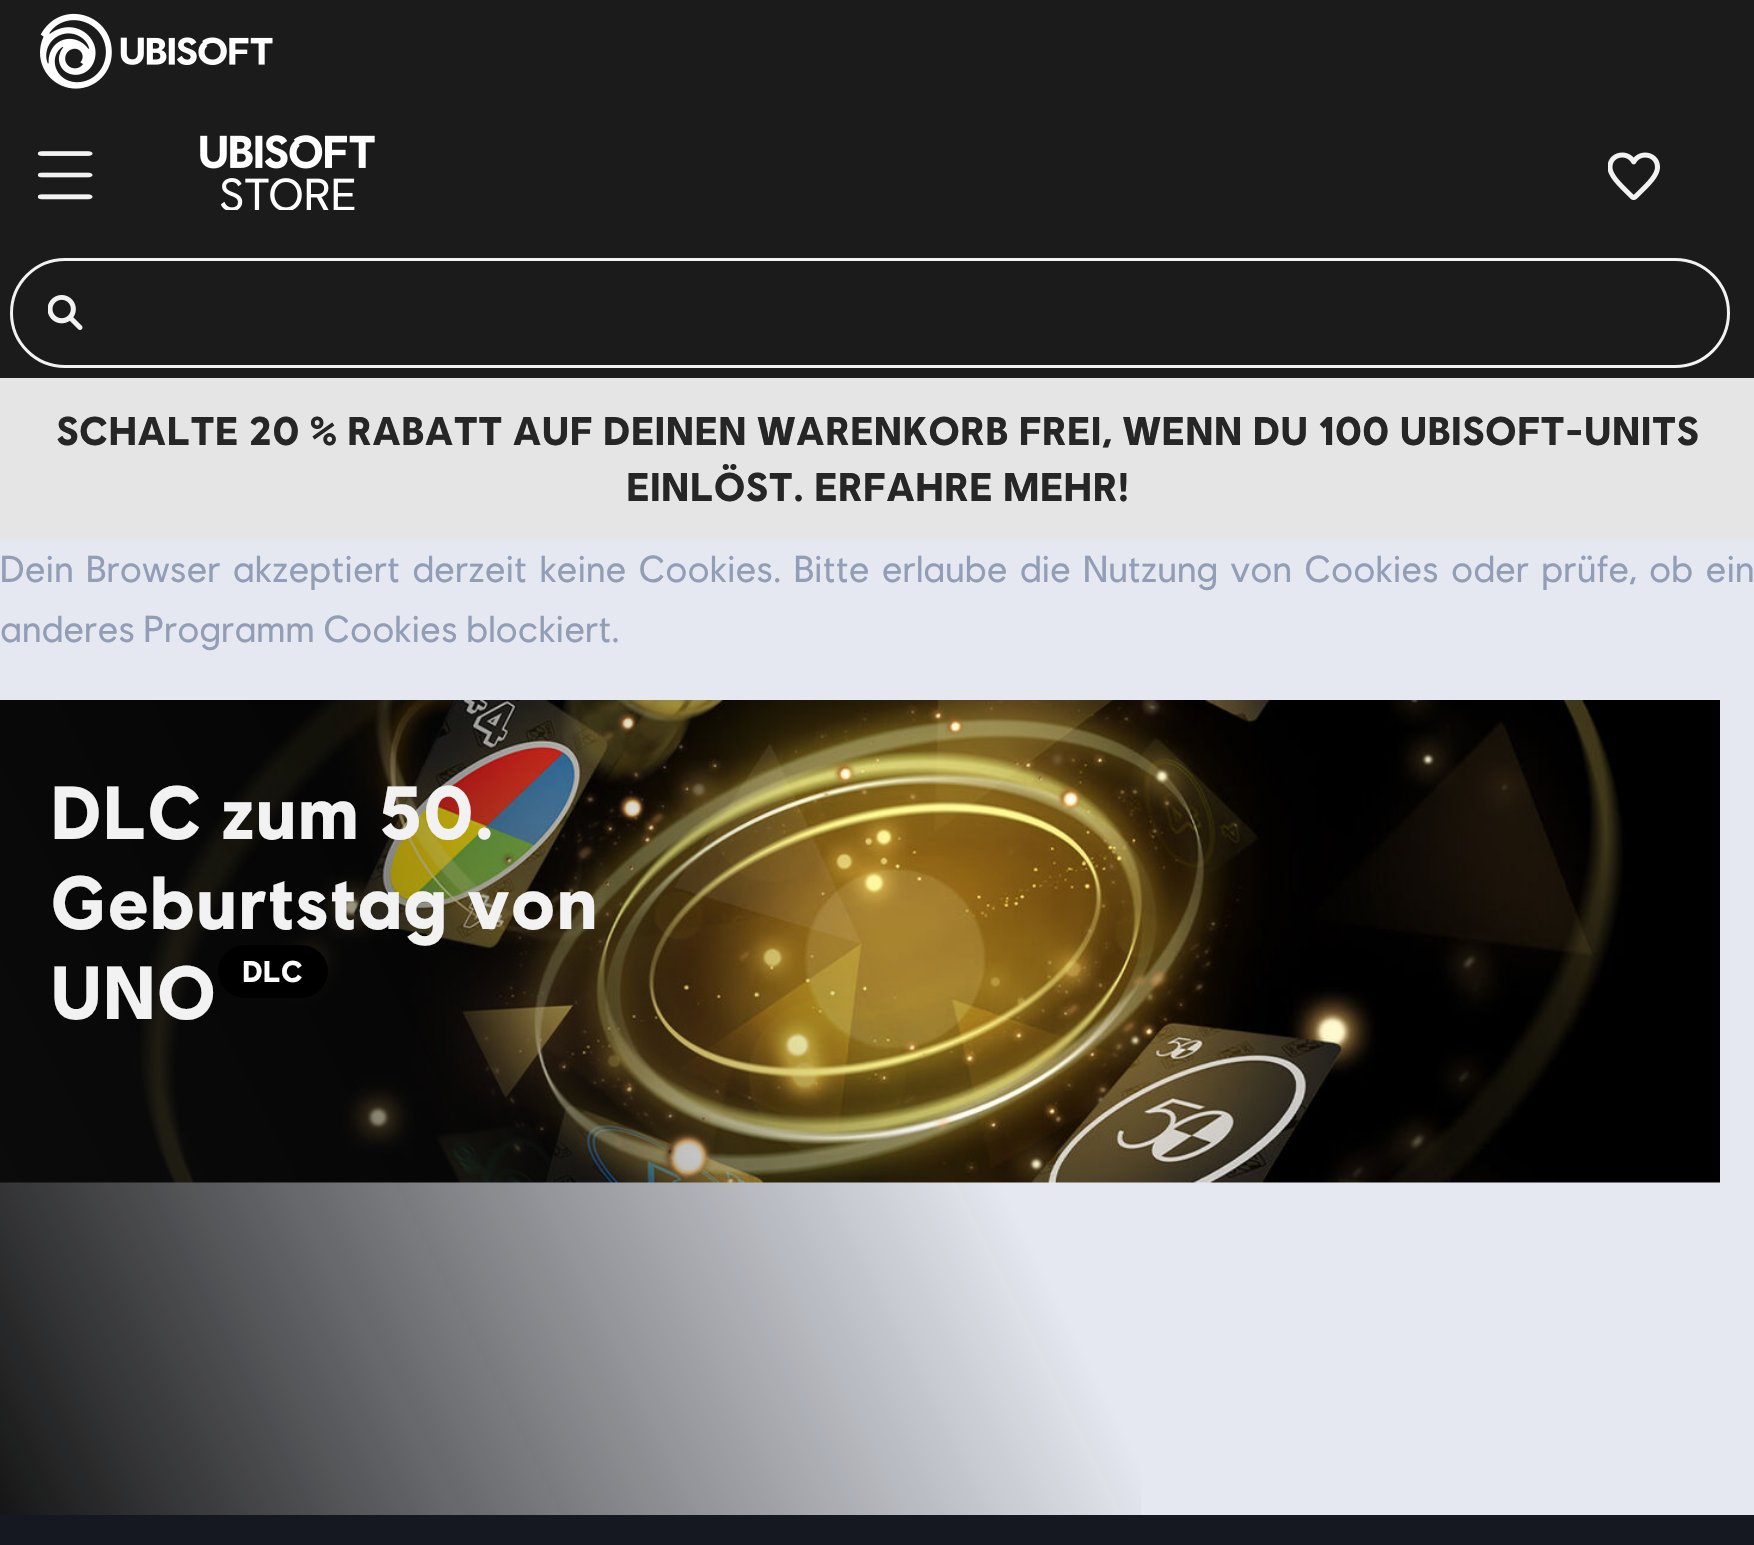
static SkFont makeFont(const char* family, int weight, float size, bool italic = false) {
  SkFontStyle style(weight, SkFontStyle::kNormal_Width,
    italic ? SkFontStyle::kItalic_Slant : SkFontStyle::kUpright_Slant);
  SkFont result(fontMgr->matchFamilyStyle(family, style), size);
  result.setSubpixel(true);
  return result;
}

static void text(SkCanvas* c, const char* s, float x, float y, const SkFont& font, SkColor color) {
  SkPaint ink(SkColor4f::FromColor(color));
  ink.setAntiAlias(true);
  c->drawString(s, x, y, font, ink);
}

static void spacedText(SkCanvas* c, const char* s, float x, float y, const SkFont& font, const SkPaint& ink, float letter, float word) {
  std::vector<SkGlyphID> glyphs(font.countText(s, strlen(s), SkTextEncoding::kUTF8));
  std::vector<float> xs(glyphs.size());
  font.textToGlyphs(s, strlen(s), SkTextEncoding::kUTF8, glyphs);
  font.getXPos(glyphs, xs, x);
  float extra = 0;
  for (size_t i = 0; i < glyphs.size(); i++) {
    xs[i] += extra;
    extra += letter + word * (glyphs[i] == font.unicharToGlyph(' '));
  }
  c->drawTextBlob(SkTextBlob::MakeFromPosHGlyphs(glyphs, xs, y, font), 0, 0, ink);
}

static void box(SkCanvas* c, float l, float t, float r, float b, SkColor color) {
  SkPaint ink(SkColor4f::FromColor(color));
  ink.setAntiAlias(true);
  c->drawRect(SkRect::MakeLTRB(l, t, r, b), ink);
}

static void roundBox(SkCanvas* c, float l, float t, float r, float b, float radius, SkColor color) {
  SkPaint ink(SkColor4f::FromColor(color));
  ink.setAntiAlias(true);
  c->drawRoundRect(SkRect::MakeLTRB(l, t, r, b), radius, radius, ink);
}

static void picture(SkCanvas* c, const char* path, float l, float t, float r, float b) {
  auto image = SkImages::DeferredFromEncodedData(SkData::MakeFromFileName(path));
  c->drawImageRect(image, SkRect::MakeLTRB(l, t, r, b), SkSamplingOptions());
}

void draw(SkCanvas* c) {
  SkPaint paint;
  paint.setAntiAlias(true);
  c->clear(0xffe5e8f0);
  box(c, 0, 0, 1754, 378, 0xff1b1b1b);
  picture(c, "img_01.png", 40, 13, 273, 89);
  picture(c, "img_02.png", 38, 151, 93, 200);
  picture(c, "img_03.png", 200, 135, 375, 210);
  picture(c, "img_04.png", 1608, 152, 1660, 200);
  paint.setStyle(SkPaint::kStroke_Style);
  paint.setStrokeWidth(3);
  paint.setColor(0xfff2f2f2);
  c->drawRoundRect(SkRect::MakeLTRB(11.5f, 259.5f, 1728.5f, 366.5f), 53.5f, 53.5f, paint);
  picture(c, "img_05.png", 48, 295, 83, 330);
  box(c, 0, 378, 1754, 540, 0xffe5e5e5);
  SkFont face1 = makeFont("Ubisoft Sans", 700, 40);
  text(c, "SCHALTE 20 % RABATT AUF DEINEN WARENKORB FREI, WENN DU 100 UBISOFT-UNITS", 56, 445, face1, 0xff262626);
  text(c, "EINLÖST. ERFAHRE MEHR!", 626, 501, face1, 0xff262626);
  SkFont face2 = makeFont("Ubisoft Sans", 400, 37.5f);
  paint.setStyle(SkPaint::kFill_Style);
  paint.setColor(0xff929db6);
  spacedText(c, "Dein Browser akzeptiert derzeit keine Cookies. Bitte erlaube die Nutzung von Cookies oder prüfe, ob ein", 0, 582, face2, paint, 0, 3.6f);
  text(c, "anderes Programm Cookies blockiert.", 0, 642, face2, 0xff929db6);
  picture(c, "img_06.png", 0, 700, 1720, 1183);
  {
    const SkColor colors[] = {0x000d0d0d, 0xf50d0d0d};
    const float stops[] = {0.46f, 1};
    const SkPoint ends[] = {{1742, 675}, {13, 1540}};
    paint.setShader(SkGradientShader::MakeLinear(ends, colors, stops, 2, SkTileMode::kClamp));
    paint.setAlpha(255);
  }
  c->drawRect(SkRect::MakeLTRB(0, 700, 1141, 1515), paint);
  SkFont face3 = makeFont("Ubisoft Sans", 700, 75);
  text(c, "DLC zum 50.", 50, 839, face3, 0xfff2f2f2);
  text(c, "Geburtstag von", 50, 929, face3, 0xfff2f2f2);
  text(c, "UNO", 50, 1019, face3, 0xfff2f2f2);
  roundBox(c, 218, 945, 328, 998, 26.5f, 0xff000000);
  SkFont face4 = makeFont("Ubisoft Sans", 700, 30);
  text(c, "DLC", 242, 982, face4, 0xffffffff);
  box(c, 0, 1515, 1754, 1545, 0xff151820);
}
